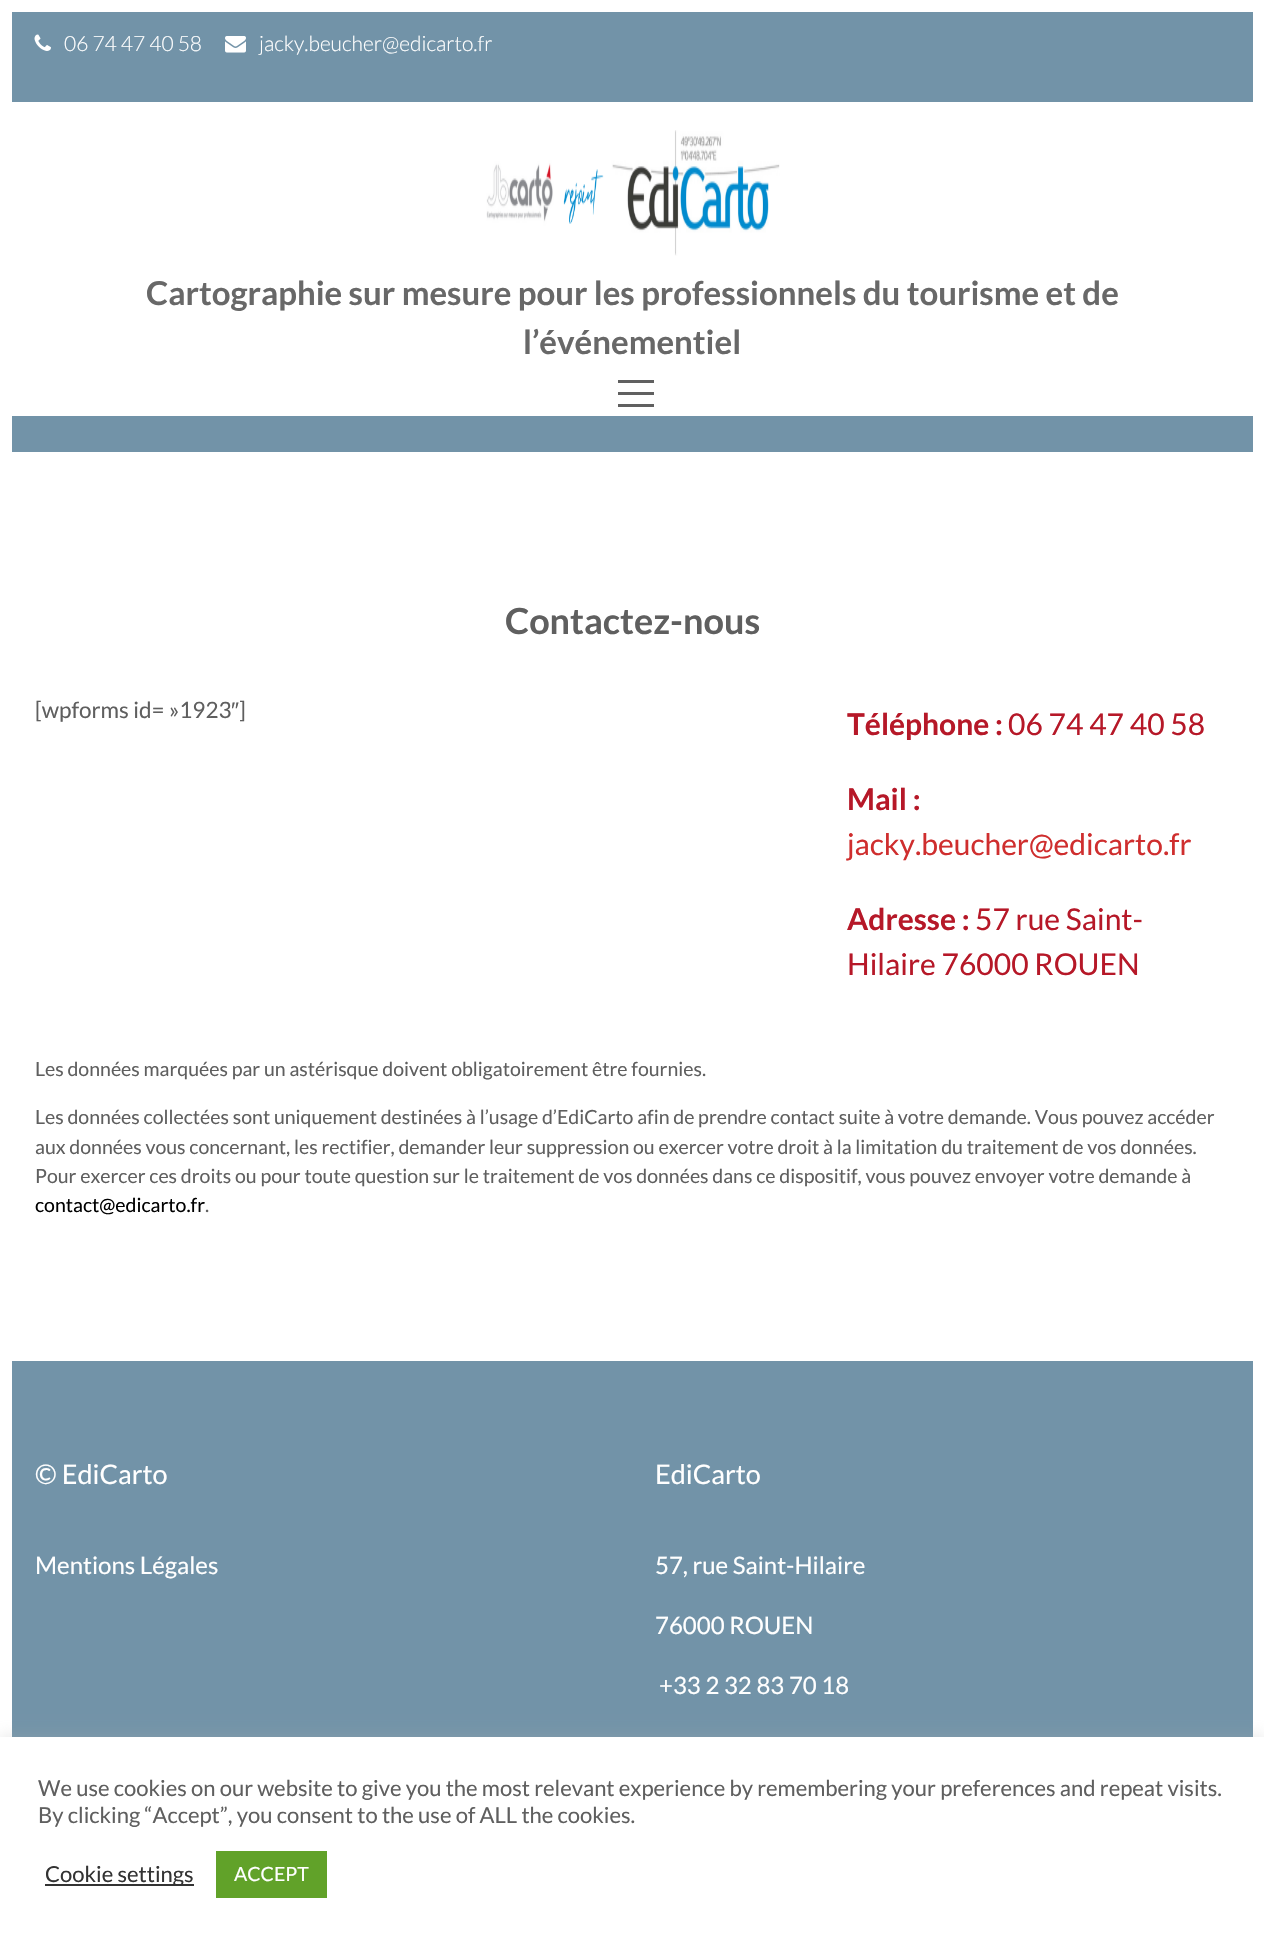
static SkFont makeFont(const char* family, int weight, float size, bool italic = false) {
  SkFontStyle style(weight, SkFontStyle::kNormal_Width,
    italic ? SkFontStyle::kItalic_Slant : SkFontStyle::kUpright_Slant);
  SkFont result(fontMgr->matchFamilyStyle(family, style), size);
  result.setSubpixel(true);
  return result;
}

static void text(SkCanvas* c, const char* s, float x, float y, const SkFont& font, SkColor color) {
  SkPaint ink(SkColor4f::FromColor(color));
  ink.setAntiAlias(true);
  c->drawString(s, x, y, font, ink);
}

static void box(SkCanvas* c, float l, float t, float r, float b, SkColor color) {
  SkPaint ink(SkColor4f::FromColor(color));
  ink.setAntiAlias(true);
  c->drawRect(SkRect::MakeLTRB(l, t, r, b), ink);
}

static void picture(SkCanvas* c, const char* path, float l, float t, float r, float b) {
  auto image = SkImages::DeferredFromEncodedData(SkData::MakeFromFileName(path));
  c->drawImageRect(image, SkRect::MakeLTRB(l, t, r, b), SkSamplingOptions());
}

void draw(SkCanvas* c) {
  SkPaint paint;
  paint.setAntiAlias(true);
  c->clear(0xffffffff);
  box(c, 12, 12, 1253, 102, 0xff7293a8);
  picture(c, "img_01.png", 34, 34, 51, 51);
  SkFont face1 = makeFont("Lato", 300, 21);
  text(c, "06 74 47 40 58", 64, 51, face1, 0xffffffff);
  picture(c, "img_02.png", 225, 36, 246, 53);
  text(c, "jacky.beucher@edicarto.fr", 259, 51, face1, 0xffffffff);
  picture(c, "img_03.png", 486, 130, 780, 256);
  SkFont face2 = makeFont("Lato", 700, 33);
  text(c, "Cartographie sur mesure pour les professionnels du tourisme et de", 146, 305, face2, 0xff686868);
  text(c, "l’événementiel", 523, 354, face2, 0xff686868);
  box(c, 618, 380, 654, 383, 0xff606060);
  box(c, 618, 392, 654, 395, 0xff606060);
  box(c, 618, 404, 654, 407, 0xff606060);
  box(c, 12, 416, 1253, 452, 0xff7293a8);
  SkFont face3 = makeFont("Lato", 700, 36);
  text(c, "Contactez-nous", 505, 634, face3, 0xff5f5f5f);
  SkFont face4 = makeFont("Lato", 400, 22.5f);
  text(c, "[wpforms id= »1923", 35, 718, face4, 0xff5f5f5f);
  SkFont face5 = makeFont("Liberation Sans", 400, 22.5f);
  text(c, "″", 231, 718, face5, 0xff5f5f5f);
  text(c, "]", 239, 718, face4, 0xff5f5f5f);
  SkFont face6 = makeFont("Lato", 700, 30);
  text(c, "Téléphone :", 847, 735, face6, 0xffb61828);
  SkFont face7 = makeFont("Lato", 400, 30);
  text(c, "06 74 47 40 58", 1008, 735, face7, 0xffb61828);
  text(c, "Mail :", 847, 810, face6, 0xffb61828);
  text(c, "jacky.beucher@edicarto.fr", 847, 855, face7, 0xffcf2e2e);
  text(c, "Adresse :", 847, 930, face6, 0xffb61828);
  text(c, "57 rue Saint-", 975, 930, face7, 0xffb61828);
  text(c, "Hilaire 76000 ROUEN", 847, 975, face7, 0xffb61828);
  SkFont face8 = makeFont("Lato", 400, 19.5f);
  text(c, "Les données marquées par un astérisque doivent obligatoirement être fournies.", 35, 1076, face8, 0xff5f5f5f);
  text(c, "Les données collectées sont uniquement destinées à l’usage d’EdiCarto afin de prendre contact suite à votre demande. Vous pouvez accéder", 35, 1124, face8, 0xff5f5f5f);
  text(c, "aux données vous concernant, les rectifier, demander leur suppression ou exercer votre droit à la limitation du traitement de vos données.", 35, 1154, face8, 0xff5f5f5f);
  text(c, "Pour exercer ces droits ou pour toute question sur le traitement de vos données dans ce dispositif, vous pouvez envoyer votre demande à", 35, 1183, face8, 0xff5f5f5f);
  text(c, "contact@edicarto.fr", 35, 1212, face8, 0xff000000);
  text(c, ".", 205, 1212, face8, 0xff5f5f5f);
  box(c, 12, 1361, 1253, 1737, 0xff7293a8);
  SkFont face9 = makeFont("Lato", 400, 27);
  text(c, "© EdiCarto", 35, 1484, face9, 0xffffffff);
  SkFont face10 = makeFont("Lato", 400, 24);
  text(c, "Mentions Légales", 35, 1574, face10, 0xffffffff);
  text(c, "EdiCarto", 655, 1484, face9, 0xffffffff);
  text(c, "57, rue Saint-Hilaire", 655, 1574, face10, 0xffffffff);
  text(c, "76000 ROUEN", 655, 1634, face10, 0xffffffff);
  text(c, "+33 2 32 83 70 18", 659, 1694, face10, 0xffffffff);
  paint.setColor(0x4dacabab);
  paint.setMaskFilter(SkMaskFilter::MakeBlur(kNormal_SkBlurStyle, 7.5f));
  c->drawRect(SkRect::MakeLTRB(0, 1736, 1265, 1941), paint);
  paint.setMaskFilter(nullptr);
  box(c, 0, 1737, 1264, 1942, 0xffffffff);
  SkFont face11 = makeFont("Lato", 400, 22);
  text(c, "We use cookies on our website to give you the most relevant experience by remembering your preferences and repeat visits.", 38, 1796, face11, 0xff5f5f5f);
  text(c, "By clicking “Accept”, you consent to the use of ALL the cookies.", 38, 1823, face11, 0xff5f5f5f);
  box(c, 45, 1884, 194, 1886, 0xff333333);
  text(c, "Cookie settings", 45, 1882, face11, 0xff333333);
  box(c, 216, 1851, 327, 1898, 0xff61a229);
  text(c, "ACCEPT", 234, 1881, face8, 0xffffffff);
}
